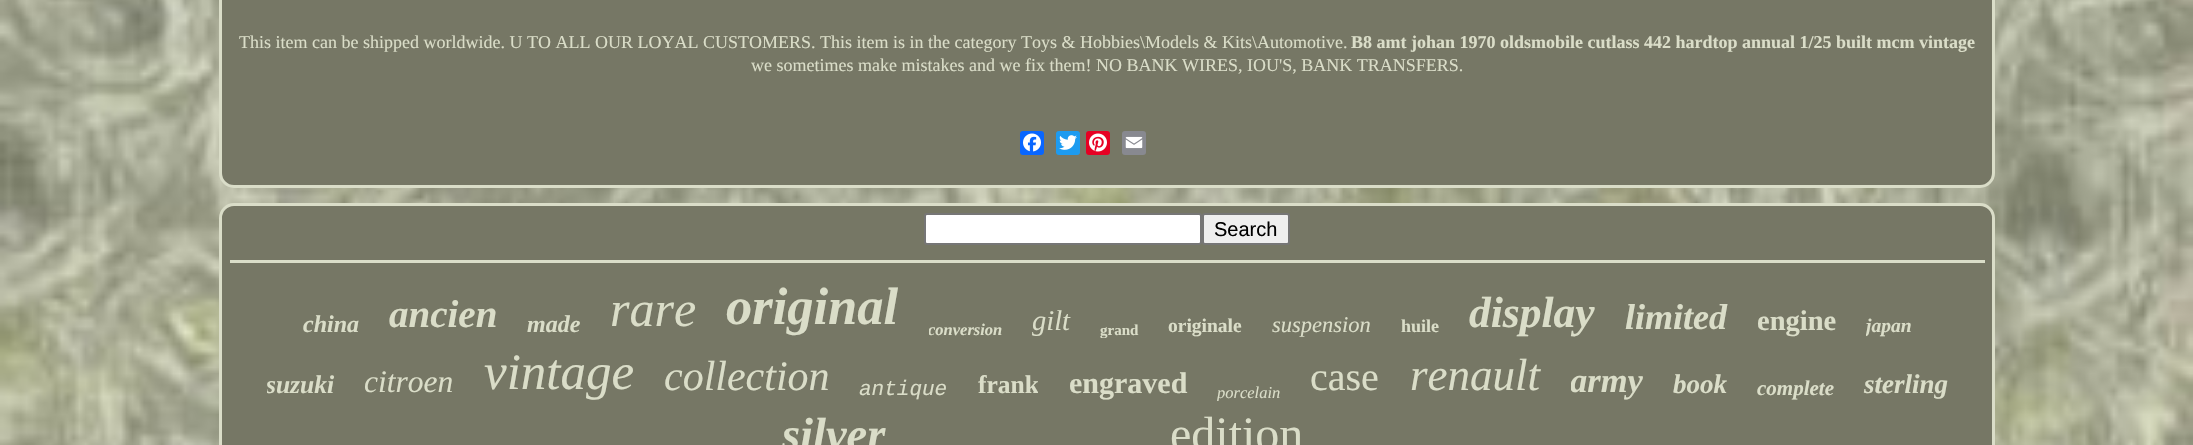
static SkFont makeFont(const char* family, int weight, float size, bool italic = false) {
  SkFontStyle style(weight, SkFontStyle::kNormal_Width,
    italic ? SkFontStyle::kItalic_Slant : SkFontStyle::kUpright_Slant);
  SkFont result(fontMgr->matchFamilyStyle(family, style), size);
  result.setSubpixel(true);
  return result;
}

static void text(SkCanvas* c, const char* s, float x, float y, const SkFont& font, SkColor color) {
  SkPaint ink(SkColor4f::FromColor(color));
  ink.setAntiAlias(true);
  c->drawString(s, x, y, font, ink);
}

static void box(SkCanvas* c, float l, float t, float r, float b, SkColor color) {
  SkPaint ink(SkColor4f::FromColor(color));
  ink.setAntiAlias(true);
  c->drawRect(SkRect::MakeLTRB(l, t, r, b), ink);
}

static void roundBox(SkCanvas* c, float l, float t, float r, float b, float radius, SkColor color) {
  SkPaint ink(SkColor4f::FromColor(color));
  ink.setAntiAlias(true);
  c->drawRoundRect(SkRect::MakeLTRB(l, t, r, b), radius, radius, ink);
}

static void picture(SkCanvas* c, const char* path, float l, float t, float r, float b) {
  auto image = SkImages::DeferredFromEncodedData(SkData::MakeFromFileName(path));
  c->drawImageRect(image, SkRect::MakeLTRB(l, t, r, b), SkSamplingOptions());
}

void draw(SkCanvas* c) {
  SkPaint paint;
  paint.setAntiAlias(true);
  c->clear(0xffffffff);
  picture(c, "img_01.png", 0, 0, 2193, 445);
  paint.setColor(0xff767765);
  c->drawRoundRect(SkRect::MakeLTRB(220.5f, -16.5f, 1993.5f, 186.5f), 13.5f, 13.5f, paint);
  paint.setStyle(SkPaint::kStroke_Style);
  paint.setStrokeWidth(3);
  paint.setColor(0xffdaddc8);
  c->drawRoundRect(SkRect::MakeLTRB(220.5f, -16.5f, 1993.5f, 186.5f), 13.5f, 13.5f, paint);
  SkFont face1 = makeFont("Liberation Serif", 400, 18);
  text(c, "This item can be shipped worldwide. U TO ALL OUR LOYAL CUSTOMERS. This item is in the category Toys & Hobbies\\Models & Kits\\Automotive.", 239, 48, face1, 0xffdaddc8);
  SkFont face2 = makeFont("Liberation Serif", 700, 18);
  text(c, "B8 amt johan 1970 oldsmobile cutlass 442 hardtop annual 1/25 built mcm vintage", 1351, 48, face2, 0xffdaddc8);
  text(c, "we sometimes make mistakes and we fix them! NO BANK WIRES, IOU'S, BANK TRANSFERS.", 751, 71, face1, 0xffdaddc8);
  roundBox(c, 1020, 131, 1044, 155, 3, 0xff0866ff);
  picture(c, "img_02.png", 1023, 133, 1041, 152);
  roundBox(c, 1056, 131, 1080, 155, 3, 0xff1d9bf0);
  picture(c, "img_03.png", 1059, 135, 1077, 150);
  roundBox(c, 1086, 131, 1110, 155, 3, 0xffe60023);
  picture(c, "img_04.png", 1089, 133, 1107, 152);
  roundBox(c, 1122, 131, 1146, 155, 3, 0xff888990);
  picture(c, "img_05.png", 1125, 136, 1143, 149);
  paint.setStyle(SkPaint::kFill_Style);
  paint.setColor(0xff767765);
  c->drawRoundRect(SkRect::MakeLTRB(220.5f, 204.5f, 1993.5f, 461.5f), 13.5f, 13.5f, paint);
  paint.setStyle(SkPaint::kStroke_Style);
  paint.setColor(0xffdaddc8);
  c->drawRoundRect(SkRect::MakeLTRB(220.5f, 204.5f, 1993.5f, 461.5f), 13.5f, 13.5f, paint);
  paint.setStyle(SkPaint::kFill_Style);
  paint.setColor(0xffffffff);
  c->drawRoundRect(SkRect::MakeLTRB(925, 214, 1201, 244), 2, 2, paint);
  paint.setStyle(SkPaint::kStroke_Style);
  paint.setStrokeWidth(2);
  paint.setColor(0xff767676);
  c->drawRoundRect(SkRect::MakeLTRB(925, 214, 1201, 244), 2, 2, paint);
  paint.setStyle(SkPaint::kFill_Style);
  paint.setColor(0xffefefef);
  c->drawRoundRect(SkRect::MakeLTRB(1203, 214, 1289, 244), 2, 2, paint);
  paint.setStyle(SkPaint::kStroke_Style);
  paint.setColor(0xff767676);
  c->drawRoundRect(SkRect::MakeLTRB(1203, 214, 1289, 244), 2, 2, paint);
  SkFont face3 = makeFont("Liberation Sans", 400, 20);
  text(c, "Search", 1214, 236, face3, 0xff000000);
  box(c, 230, 260, 1985, 263, 0xffdaddc8);
  SkFont face4 = makeFont("Liberation Serif", 700, 24, true);
  text(c, "china", 303, 332, face4, 0xffdaddc8);
  SkFont face5 = makeFont("Liberation Serif", 700, 39, true);
  text(c, "ancien", 389, 327, face5, 0xffdaddc8);
  text(c, "made", 527, 332, face4, 0xffdaddc8);
  SkFont face6 = makeFont("Liberation Serif", 400, 50, true);
  text(c, "rare", 610, 326, face6, 0xffdaddc8);
  SkFont face7 = makeFont("Liberation Serif", 700, 52.5f, true);
  text(c, "original", 726, 324, face7, 0xffdaddc8);
  c->save();
  c->clipRect(SkRect::MakeLTRB(929, 320, 1002, 338));
  SkFont face8 = makeFont("Liberation Serif", 700, 16.5f, true);
  text(c, "conversion", 928, 335, face8, 0xffdaddc8);
  c->restore();
  SkFont face9 = makeFont("Liberation Serif", 400, 28.5f, true);
  text(c, "gilt", 1032, 330, face9, 0xffdaddc8);
  c->save();
  c->clipRect(SkRect::MakeLTRB(1100, 321, 1139, 338));
  SkFont face10 = makeFont("Liberation Serif", 700, 15);
  text(c, "grand", 1100, 335, face10, 0xffdaddc8);
  c->restore();
  SkFont face11 = makeFont("Liberation Serif", 700, 19.5f);
  text(c, "originale", 1168, 332, face11, 0xffdaddc8);
  SkFont face12 = makeFont("Liberation Serif", 400, 22.5f, true);
  text(c, "suspension", 1272, 332, face12, 0xffdaddc8);
  text(c, "huile", 1401, 332, face2, 0xffdaddc8);
  SkFont face13 = makeFont("Liberation Serif", 700, 43.5f, true);
  text(c, "display", 1469, 327, face13, 0xffdaddc8);
  SkFont face14 = makeFont("Liberation Serif", 700, 36, true);
  text(c, "limited", 1625, 329, face14, 0xffdaddc8);
  SkFont face15 = makeFont("Liberation Serif", 700, 28.5f);
  text(c, "engine", 1757, 330, face15, 0xffdaddc8);
  c->save();
  c->clipRect(SkRect::MakeLTRB(1866, 314, 1911, 338));
  SkFont face16 = makeFont("Liberation Serif", 700, 19.5f, true);
  text(c, "japan", 1866, 332, face16, 0xffdaddc8);
  c->restore();
  c->save();
  c->clipRect(SkRect::MakeLTRB(267, 371, 335, 401));
  SkFont face17 = makeFont("Liberation Serif", 700, 25.5f, true);
  text(c, "suzuki", 266, 393, face17, 0xffdaddc8);
  c->restore();
  SkFont face18 = makeFont("Liberation Serif", 400, 31.5f, true);
  text(c, "citroen", 364, 392, face18, 0xffdaddc8);
  SkFont face19 = makeFont("Liberation Serif", 400, 51, true);
  text(c, "vintage", 484, 389, face19, 0xffdaddc8);
  SkFont face20 = makeFont("Liberation Serif", 400, 42, true);
  text(c, "collection", 664, 390, face20, 0xffdaddc8);
  SkFont face21 = makeFont("Liberation Mono", 400, 21, true);
  text(c, "antique", 859, 395, face21, 0xffdaddc8);
  c->save();
  c->clipRect(SkRect::MakeLTRB(978, 371, 1038, 401));
  SkFont face22 = makeFont("Liberation Serif", 700, 25.5f);
  text(c, "frank", 978, 393, face22, 0xffdaddc8);
  c->restore();
  SkFont face23 = makeFont("Liberation Serif", 700, 30);
  text(c, "engraved", 1069, 393, face23, 0xffdaddc8);
  c->save();
  c->clipRect(SkRect::MakeLTRB(1217, 383, 1280, 401));
  SkFont face24 = makeFont("Liberation Serif", 400, 16.5f, true);
  text(c, "porcelain", 1217, 398, face24, 0xffdaddc8);
  c->restore();
  SkFont face25 = makeFont("Liberation Serif", 400, 40);
  text(c, "case", 1310, 390, face25, 0xffdaddc8);
  SkFont face26 = makeFont("Liberation Serif", 400, 45, true);
  text(c, "renault", 1410, 390, face26, 0xffdaddc8);
  c->save();
  c->clipRect(SkRect::MakeLTRB(1571, 362, 1643, 401));
  SkFont face27 = makeFont("Liberation Serif", 700, 34.5f, true);
  text(c, "army", 1570, 392, face27, 0xffdaddc8);
  c->restore();
  SkFont face28 = makeFont("Liberation Serif", 700, 27, true);
  text(c, "book", 1673, 393, face28, 0xffdaddc8);
  SkFont face29 = makeFont("Liberation Serif", 700, 21, true);
  text(c, "complete", 1757, 395, face29, 0xffdaddc8);
  text(c, "sterling", 1864, 393, face28, 0xffdaddc8);
  SkFont face30 = makeFont("Liberation Serif", 700, 46.5f, true);
  text(c, "silver", 782, 450, face30, 0xffdaddc8);
  SkFont face31 = makeFont("Liberation Serif", 400, 48);
  text(c, "edition", 1170, 450, face31, 0xffdaddc8);
}
